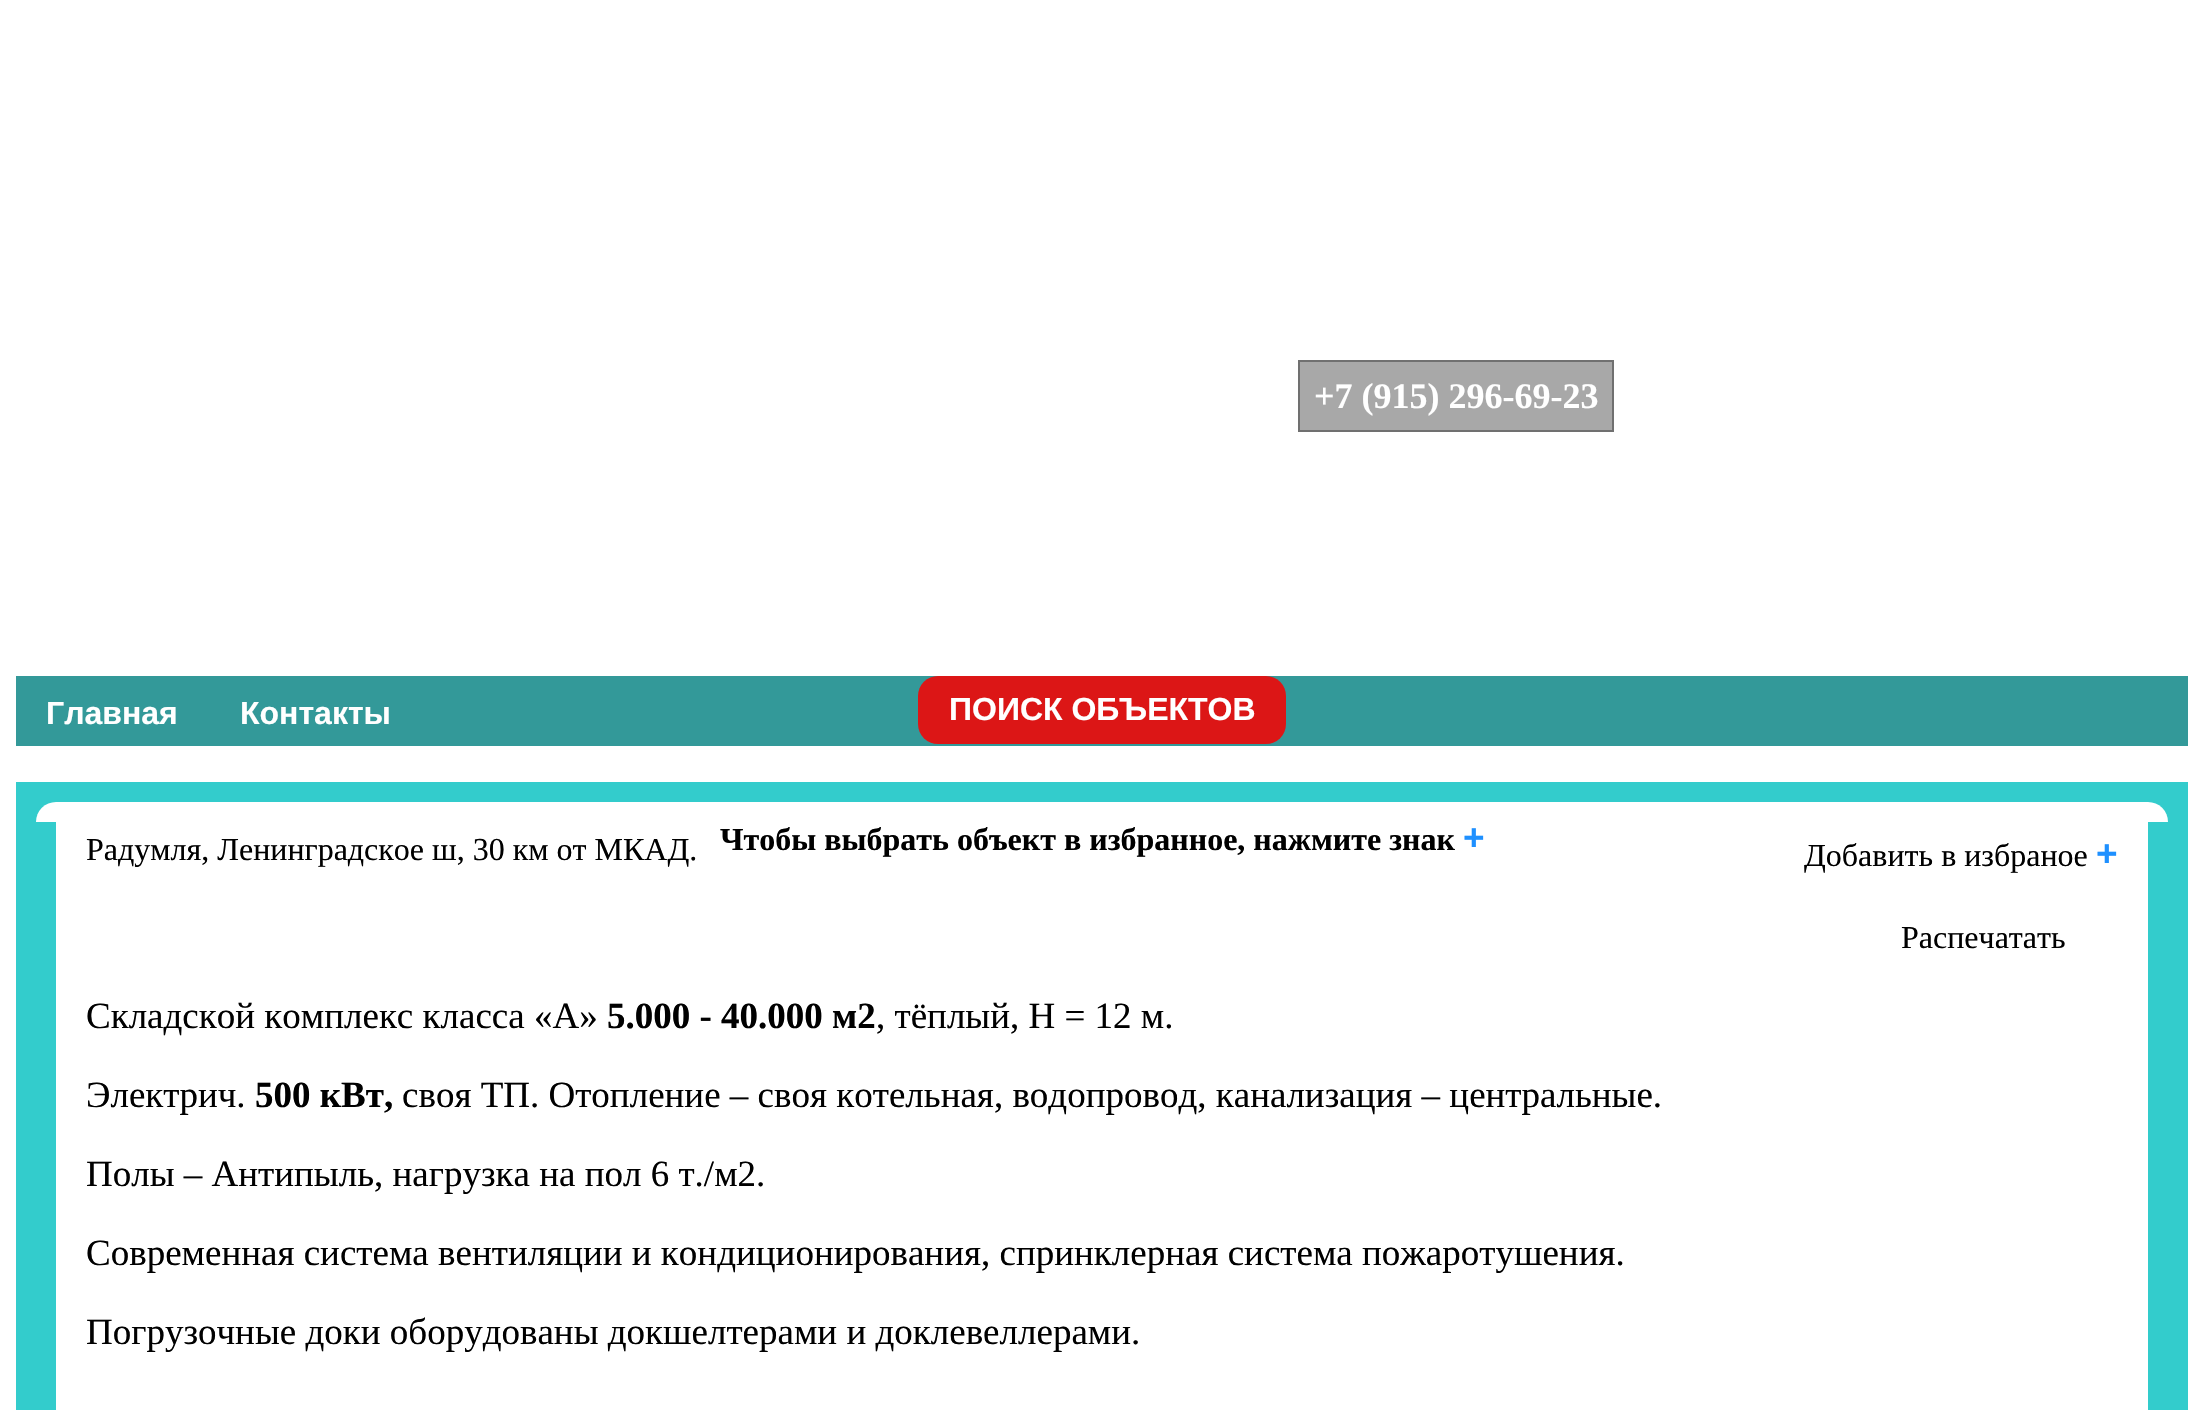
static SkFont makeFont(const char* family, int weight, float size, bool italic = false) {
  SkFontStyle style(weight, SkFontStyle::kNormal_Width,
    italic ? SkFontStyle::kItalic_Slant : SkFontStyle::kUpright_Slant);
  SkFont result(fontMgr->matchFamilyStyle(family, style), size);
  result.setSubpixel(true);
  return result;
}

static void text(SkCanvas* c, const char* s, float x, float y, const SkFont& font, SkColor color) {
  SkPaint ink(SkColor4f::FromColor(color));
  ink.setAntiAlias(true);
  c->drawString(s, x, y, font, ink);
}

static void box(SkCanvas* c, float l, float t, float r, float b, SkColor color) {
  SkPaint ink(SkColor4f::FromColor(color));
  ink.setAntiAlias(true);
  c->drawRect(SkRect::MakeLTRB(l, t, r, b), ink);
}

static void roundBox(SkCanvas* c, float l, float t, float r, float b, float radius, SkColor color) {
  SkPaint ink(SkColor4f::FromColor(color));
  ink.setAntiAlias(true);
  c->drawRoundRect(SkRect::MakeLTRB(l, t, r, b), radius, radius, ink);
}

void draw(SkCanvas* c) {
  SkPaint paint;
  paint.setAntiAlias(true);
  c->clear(0xffffffff);
  paint.setColor(0xffa8a8a8);
  c->drawRect(SkRect::MakeLTRB(1299, 361, 1613, 431), paint);
  paint.setStyle(SkPaint::kStroke_Style);
  paint.setStrokeWidth(2);
  paint.setColor(0xff707070);
  c->drawRect(SkRect::MakeLTRB(1299, 361, 1613, 431), paint);
  SkFont face1 = makeFont("Liberation Serif", 700, 36);
  text(c, "+7 (915) 296-69-23", 1314, 408, face1, 0xffffffff);
  box(c, 16, 676, 2188, 746, 0xff339999);
  SkFont face2 = makeFont("Liberation Sans", 700, 32);
  text(c, "Главная", 46, 724, face2, 0xffffffff);
  text(c, "Контакты", 240, 724, face2, 0xffffffff);
  roundBox(c, 918, 676, 1286, 744, 20, 0xffdc1616);
  text(c, "ПОИСК ОБЪЕКТОВ", 949, 720, face2, 0xffffffff);
  box(c, 16, 782, 2188, 822, 0xff33cccc);
  roundBox(c, 36, 802, 2168, 874, 20, 0xffffffff);
  box(c, 16, 822, 2188, 1410, 0xff33cccc);
  box(c, 56, 822, 2148, 1410, 0xffffffff);
  SkFont face3 = makeFont("Liberation Serif", 700, 32);
  text(c, "Чтобы выбрать объект в избранное, нажмите знак", 720, 850, face3, 0xff000000);
  SkFont face4 = makeFont("Liberation Sans", 700, 37);
  text(c, "+", 1463, 850, face4, 0xff1e90ff);
  SkFont face5 = makeFont("Liberation Serif", 400, 32);
  text(c, "Радумля, Ленинградское ш, 30 км от МКАД.", 86, 860, face5, 0xff000000);
  text(c, "Добавить в избраное", 1804, 866, face5, 0xff000000);
  text(c, "+", 2096, 866, face4, 0xff1e90ff);
  text(c, "Распечатать", 1901, 948, face5, 0xff000000);
  SkFont face6 = makeFont("Liberation Serif", 400, 37);
  text(c, "Складской комплекс класса «А»", 86, 1028, face6, 0xff000000);
  SkFont face7 = makeFont("Liberation Serif", 700, 37);
  text(c, "5.000 - 40.000 м2", 607, 1028, face7, 0xff000000);
  text(c, ", тёплый, Н = 12 м.", 876, 1028, face6, 0xff000000);
  text(c, "Электрич.", 86, 1107, face6, 0xff000000);
  text(c, "500 кВт,", 255, 1107, face7, 0xff000000);
  text(c, "своя ТП. Отопление – своя котельная, водопровод, канализация – центральные.", 402, 1107, face6, 0xff000000);
  text(c, "Полы – Антипыль, нагрузка на пол 6 т./м2.", 86, 1186, face6, 0xff000000);
  text(c, "Современная система вентиляции и кондиционирования, спринклерная система пожаротушения.", 86, 1265, face6, 0xff000000);
  text(c, "Погрузочные доки оборудованы докшелтерами и доклевеллерами.", 86, 1344, face6, 0xff000000);
}
